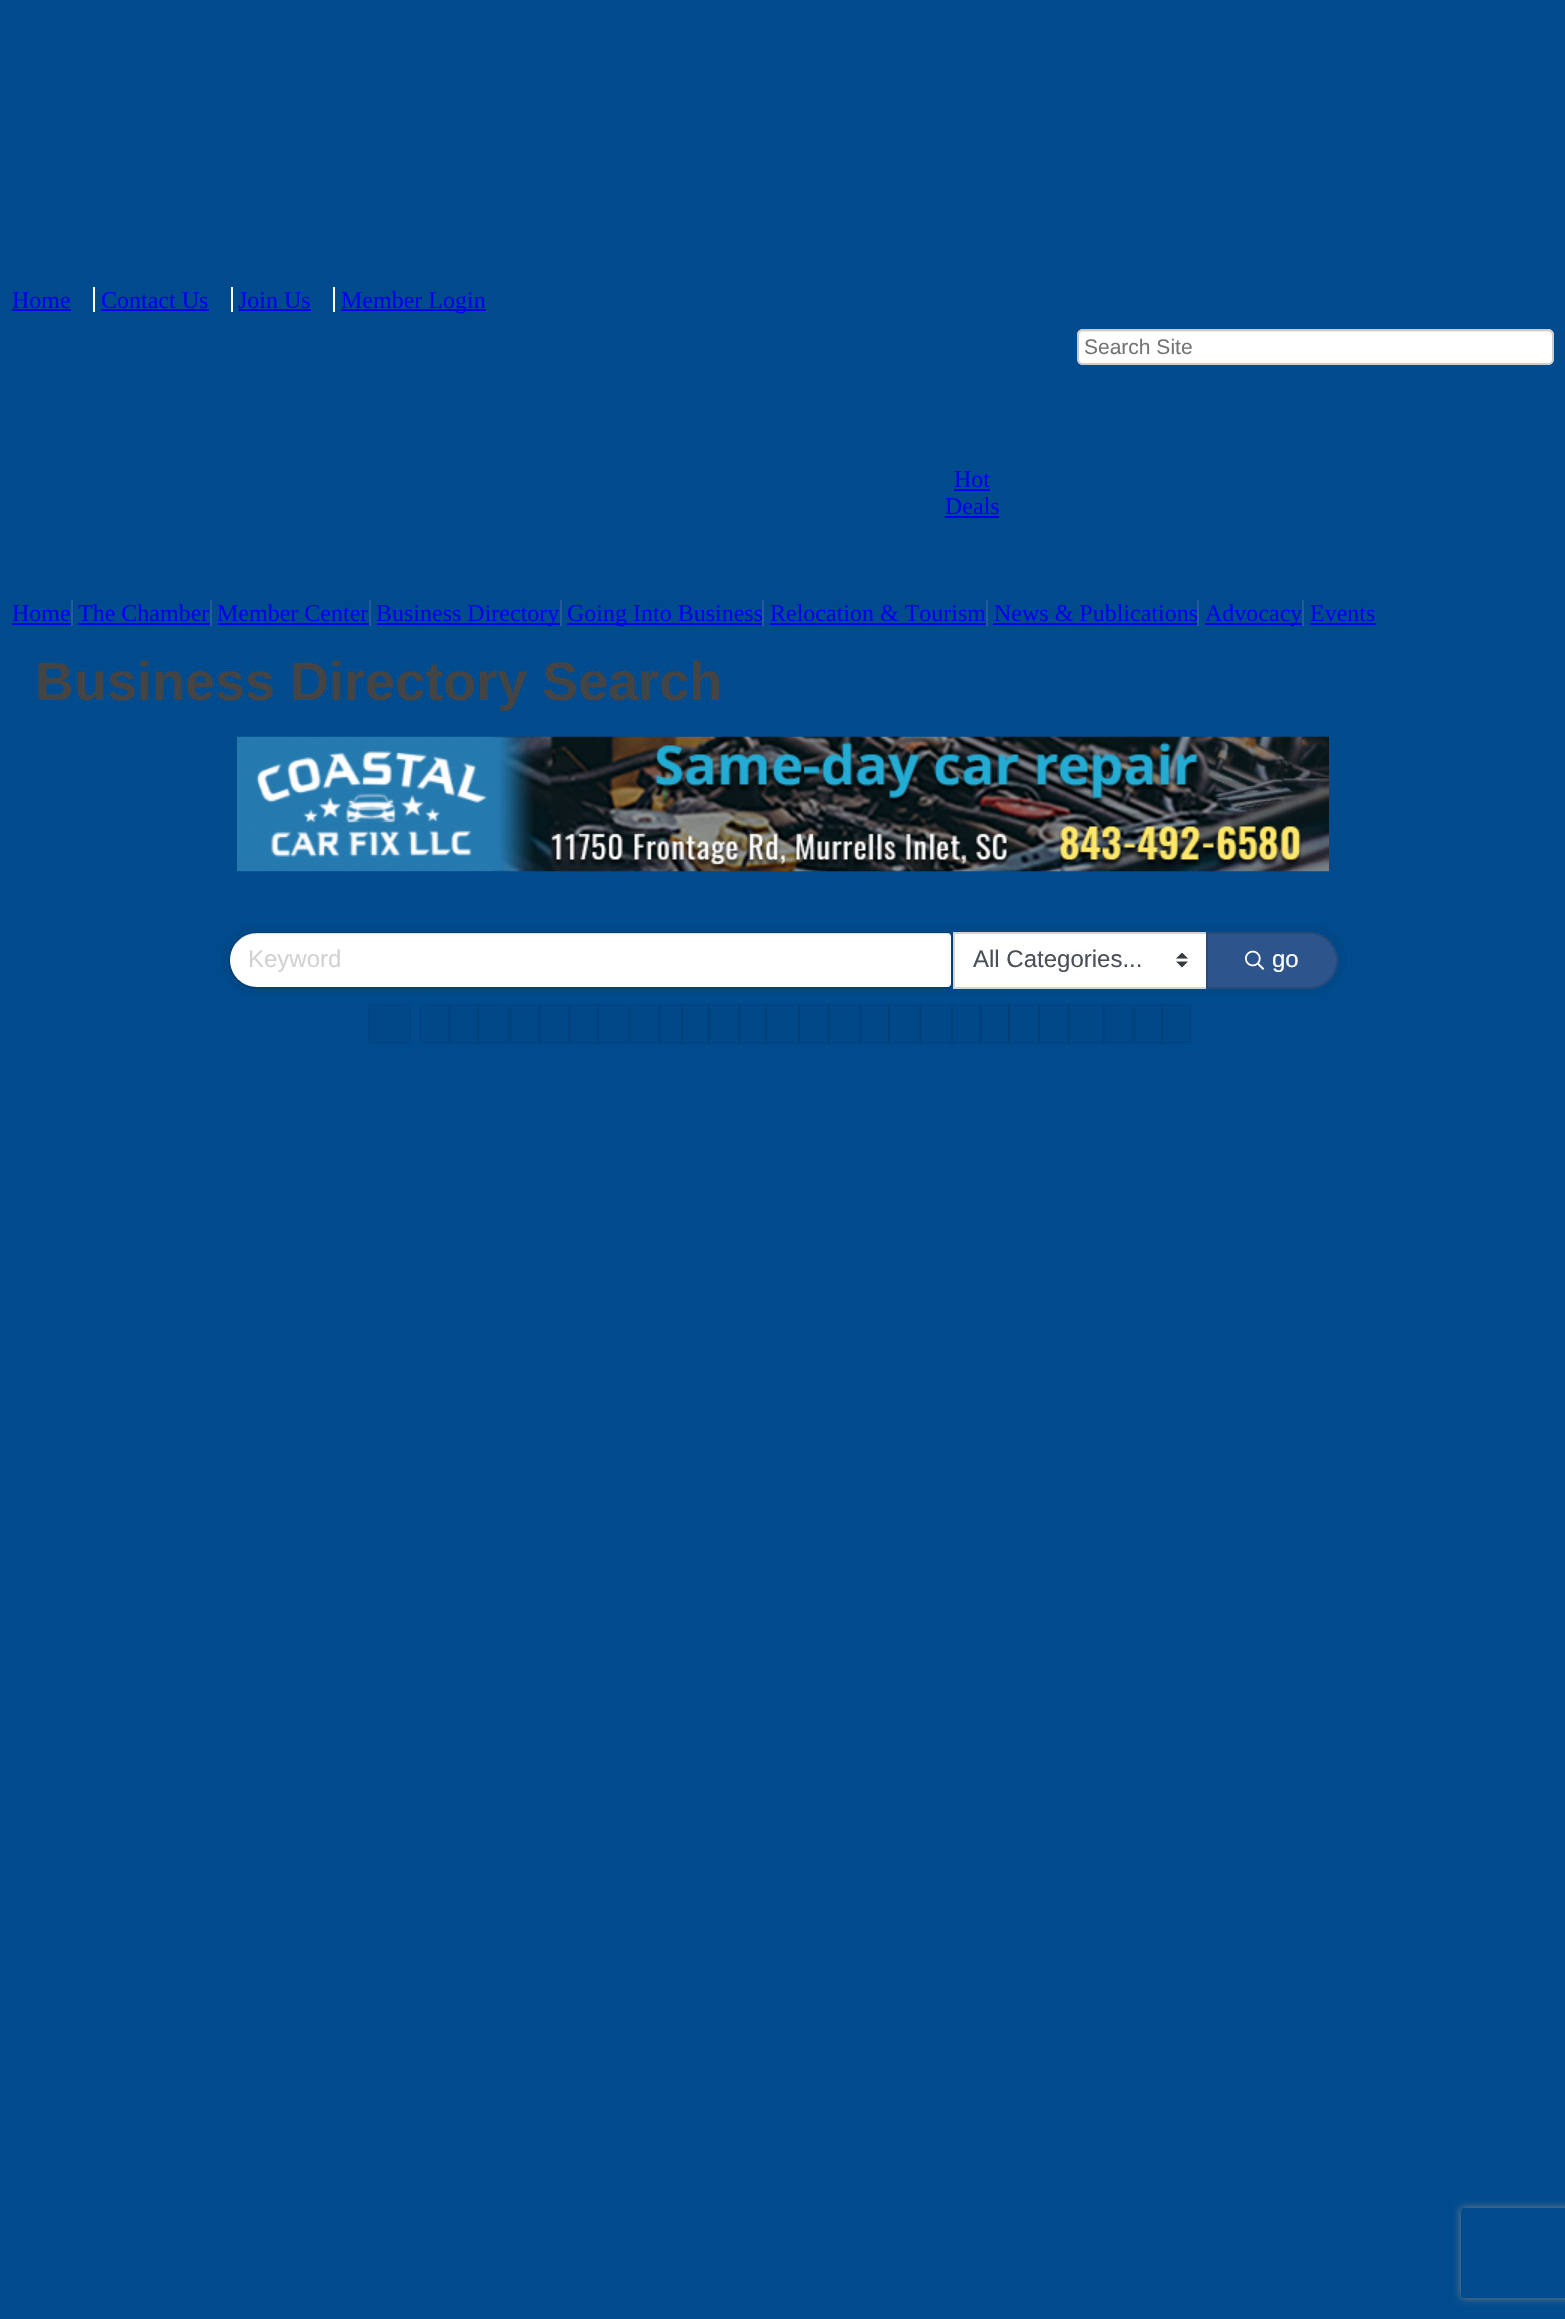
static SkFont makeFont(const char* family, int weight, float size, bool italic = false) {
  SkFontStyle style(weight, SkFontStyle::kNormal_Width,
    italic ? SkFontStyle::kItalic_Slant : SkFontStyle::kUpright_Slant);
  SkFont result(fontMgr->matchFamilyStyle(family, style), size);
  result.setSubpixel(true);
  return result;
}

static void text(SkCanvas* c, const char* s, float x, float y, const SkFont& font, SkColor color) {
  SkPaint ink(SkColor4f::FromColor(color));
  ink.setAntiAlias(true);
  c->drawString(s, x, y, font, ink);
}

static void box(SkCanvas* c, float l, float t, float r, float b, SkColor color) {
  SkPaint ink(SkColor4f::FromColor(color));
  ink.setAntiAlias(true);
  c->drawRect(SkRect::MakeLTRB(l, t, r, b), ink);
}

static void roundBox(SkCanvas* c, float l, float t, float r, float b, float radius, SkColor color) {
  SkPaint ink(SkColor4f::FromColor(color));
  ink.setAntiAlias(true);
  c->drawRoundRect(SkRect::MakeLTRB(l, t, r, b), radius, radius, ink);
}

static void picture(SkCanvas* c, const char* path, float l, float t, float r, float b) {
  auto image = SkImages::DeferredFromEncodedData(SkData::MakeFromFileName(path));
  c->drawImageRect(image, SkRect::MakeLTRB(l, t, r, b), SkSamplingOptions());
}

void draw(SkCanvas* c) {
  SkPaint paint;
  paint.setAntiAlias(true);
  c->clear(0xff004b8e);
  SkFont face1 = makeFont("Liberation Serif", 400, 24);
  text(c, "Home", 12, 308, face1, 0xff0000ee);
  box(c, 93, 287, 95, 312, 0xffffffff);
  box(c, 12, 309, 71, 311, 0xff0000ee);
  text(c, "Contact Us", 101, 308, face1, 0xff0000ee);
  box(c, 231, 287, 233, 312, 0xffffffff);
  box(c, 101, 309, 209, 311, 0xff0000ee);
  text(c, "Join Us", 238, 308, face1, 0xff0000ee);
  box(c, 333, 287, 335, 312, 0xffffffff);
  box(c, 239, 309, 311, 311, 0xff0000ee);
  box(c, 341, 309, 486, 311, 0xff0000ee);
  text(c, "Member Login", 341, 308, face1, 0xff0000ee);
  roundBox(c, 1077, 329, 1554, 365, 6, 0xffffffff);
  paint.setColor(0xffececec);
  c->drawPath(SkPathBuilder().moveTo(1083, 332).lineTo(1548, 332).cubicTo(1550, 332, 1552, 334, 1552, 336).lineTo(1552, 361).cubicTo(1553, 360, 1553, 359, 1553, 358).lineTo(1553, 335).cubicTo(1553, 332, 1551, 330, 1548, 330).lineTo(1084, 330).cubicTo(1082, 330, 1080, 332, 1079, 334).cubicTo(1080, 333, 1082, 332, 1083, 332).close().detach(), paint);
  paint.setStyle(SkPaint::kStroke_Style);
  paint.setStrokeWidth(2);
  paint.setColor(0xffcccccc);
  c->drawRoundRect(SkRect::MakeLTRB(1078, 330, 1553, 364), 5, 5, paint);
  SkFont face2 = makeFont("Liberation Sans", 400, 21);
  text(c, "Search Site", 1084, 354, face2, 0xff757575);
  text(c, "Hot", 954, 487, face1, 0xff0000ee);
  box(c, 954, 489, 990, 491, 0xff0000ee);
  text(c, "Deals", 945, 514, face1, 0xff0000ee);
  box(c, 945, 516, 999, 518, 0xff0000ee);
  text(c, "Home", 12, 621, face1, 0xff0000ee);
  box(c, 71, 600, 73, 626, 0xff265b9a);
  box(c, 12, 623, 71, 625, 0xff0000ee);
  text(c, "The Chamber", 78, 621, face1, 0xff0000ee);
  box(c, 210, 600, 212, 626, 0xff265b9a);
  box(c, 78, 623, 210, 625, 0xff0000ee);
  text(c, "Member Center", 217, 621, face1, 0xff0000ee);
  box(c, 369, 600, 371, 626, 0xff265b9a);
  box(c, 218, 623, 369, 625, 0xff0000ee);
  box(c, 377, 623, 560, 625, 0xff0000ee);
  text(c, "Business Directory", 376, 621, face1, 0xff0000ee);
  box(c, 560, 600, 562, 626, 0xff265b9a);
  box(c, 567, 623, 762, 625, 0xff0000ee);
  text(c, "Going Into Business", 567, 621, face1, 0xff0000ee);
  box(c, 762, 600, 764, 626, 0xff265b9a);
  text(c, "Relocation & Tourism", 770, 621, face1, 0xff0000ee);
  box(c, 986, 600, 988, 626, 0xff265b9a);
  box(c, 770, 623, 986, 625, 0xff0000ee);
  text(c, "News & Publications", 994, 621, face1, 0xff0000ee);
  box(c, 1197, 600, 1199, 626, 0xff265b9a);
  box(c, 993, 623, 1197, 625, 0xff0000ee);
  box(c, 1302, 600, 1304, 626, 0xff265b9a);
  box(c, 1205, 623, 1302, 625, 0xff0000ee);
  text(c, "Advocacy", 1205, 621, face1, 0xff0000ee);
  text(c, "Events", 1310, 621, face1, 0xff0000ee);
  box(c, 1310, 623, 1376, 625, 0xff0000ee);
  SkFont face3 = makeFont("Liberation Sans", 700, 54);
  text(c, "Business Directory Search", 35, 700, face3, 0xff444444);
  picture(c, "img_01.png", 237, 736, 1329, 872);
  roundBox(c, 221, 924, 1346, 996, 36, 0xff004888);
  paint.setStyle(SkPaint::kFill_Style);
  paint.setColor(0xffffffff);
  c->drawPath(SkPathBuilder().moveTo(257, 933).lineTo(948, 933).cubicTo(949.5f, 933, 951, 934.5f, 951, 936).lineTo(951, 984).cubicTo(951, 985.5f, 949.5f, 987, 948, 987).lineTo(257, 987).cubicTo(242, 987, 230, 975, 230, 960).cubicTo(230, 945, 242, 933, 257, 933).close().detach(), paint);
  paint.setStyle(SkPaint::kStroke_Style);
  paint.setColor(0x1f000000);
  c->drawPath(SkPathBuilder().moveTo(256.5f, 933).lineTo(948, 933).cubicTo(950, 933, 952, 935, 952, 937).lineTo(952, 984).cubicTo(952, 986, 950, 988, 948, 988).lineTo(256.5f, 988).cubicTo(241.5f, 988, 229, 975.5f, 229, 960.5f).cubicTo(229, 945.5f, 241.5f, 933, 256.5f, 933).close().detach(), paint);
  SkFont face4 = makeFont("Liberation Sans", 400, 24);
  text(c, "Keyword", 248, 967, face4, 0xffd2d2d2);
  box(c, 955, 934, 1206, 987, 0xffffffff);
  picture(c, "img_02.png", 1176, 953, 1188, 968);
  paint.setColor(0xffced4da);
  c->drawRect(SkRect::MakeLTRB(954, 933, 1207, 988), paint);
  text(c, "All Categories...", 973, 967, face4, 0xff495057);
  paint.setStyle(SkPaint::kFill_Style);
  paint.setColor(0xff2d548b);
  c->drawPath(SkPathBuilder().moveTo(1206, 932).lineTo(1309.5f, 932).cubicTo(1325, 932, 1338, 945, 1338, 960.5f).cubicTo(1338, 976, 1325, 989, 1309.5f, 989).lineTo(1206, 989).close().detach(), paint);
  paint.setStyle(SkPaint::kStroke_Style);
  paint.setColor(0x1f000000);
  c->drawPath(SkPathBuilder().moveTo(1207, 933).lineTo(1309.5f, 933).cubicTo(1324.5f, 933, 1337, 945.5f, 1337, 960.5f).cubicTo(1337, 975.5f, 1324.5f, 988, 1309.5f, 988).lineTo(1207, 988).close().detach(), paint);
  picture(c, "img_03.png", 1245, 950, 1265, 970);
  text(c, "go", 1272, 967, face4, 0xffffffff);
  roundBox(c, 368, 1004, 411, 1044, 8, 0xff004888);
  paint.setColor(0x0a000000);
  c->drawRect(SkRect::MakeLTRB(369, 1005, 410, 1043), paint);
  paint.setStyle(SkPaint::kFill_Style);
  paint.setColor(0xff004888);
  c->drawPath(SkPathBuilder().moveTo(427, 1004).lineTo(450, 1004).lineTo(450, 1044).lineTo(427, 1044).cubicTo(422.5f, 1044, 419, 1040.5f, 419, 1036).lineTo(419, 1012).cubicTo(419, 1007.5f, 422.5f, 1004, 427, 1004).close().detach(), paint);
  paint.setStyle(SkPaint::kStroke_Style);
  paint.setColor(0x0a000000);
  c->drawRect(SkRect::MakeLTRB(420, 1005, 449, 1043), paint);
  box(c, 449, 1004, 479, 1044, 0x0a000000);
  c->drawRect(SkRect::MakeLTRB(450, 1005, 478, 1043), paint);
  box(c, 477, 1004, 510, 1044, 0x0a000000);
  c->drawRect(SkRect::MakeLTRB(478, 1005, 509, 1043), paint);
  box(c, 509, 1004, 540, 1044, 0x0a000000);
  c->drawRect(SkRect::MakeLTRB(510, 1005, 539, 1043), paint);
  box(c, 539, 1004, 570, 1044, 0x0a000000);
  c->drawRect(SkRect::MakeLTRB(540, 1005, 569, 1043), paint);
  box(c, 569, 1004, 599, 1044, 0x0a000000);
  c->drawRect(SkRect::MakeLTRB(570, 1005, 598, 1043), paint);
  box(c, 597, 1004, 630, 1044, 0x0a000000);
  c->drawRect(SkRect::MakeLTRB(598, 1005, 629, 1043), paint);
  box(c, 629, 1004, 660, 1044, 0x0a000000);
  c->drawRect(SkRect::MakeLTRB(630, 1005, 659, 1043), paint);
  box(c, 659, 1004, 683, 1044, 0x0a000000);
  c->drawRect(SkRect::MakeLTRB(660, 1005, 682, 1043), paint);
  box(c, 681, 1004, 710, 1044, 0x0a000000);
  c->drawRect(SkRect::MakeLTRB(682, 1005, 709, 1043), paint);
  box(c, 708, 1004, 740, 1044, 0x0a000000);
  c->drawRect(SkRect::MakeLTRB(709, 1005, 739, 1043), paint);
  box(c, 738, 1004, 767, 1044, 0x0a000000);
  c->drawRect(SkRect::MakeLTRB(739, 1005, 766, 1043), paint);
  box(c, 765, 1004, 800, 1044, 0x0a000000);
  c->drawRect(SkRect::MakeLTRB(766, 1005, 799, 1043), paint);
  box(c, 798, 1004, 830, 1044, 0x0a000000);
  c->drawRect(SkRect::MakeLTRB(799, 1005, 829, 1043), paint);
  box(c, 828, 1004, 861, 1044, 0x0a000000);
  c->drawRect(SkRect::MakeLTRB(829, 1005, 860, 1043), paint);
  box(c, 860, 1004, 890, 1044, 0x0a000000);
  c->drawRect(SkRect::MakeLTRB(861, 1005, 889, 1043), paint);
  box(c, 888, 1004, 921, 1044, 0x0a000000);
  c->drawRect(SkRect::MakeLTRB(889, 1005, 920, 1043), paint);
  box(c, 920, 1004, 953, 1044, 0x0a000000);
  c->drawRect(SkRect::MakeLTRB(921, 1005, 952, 1043), paint);
  box(c, 951, 1004, 981, 1044, 0x0a000000);
  c->drawRect(SkRect::MakeLTRB(952, 1005, 980, 1043), paint);
  box(c, 980, 1004, 1010, 1044, 0x0a000000);
  c->drawRect(SkRect::MakeLTRB(981, 1005, 1009, 1043), paint);
  box(c, 1008, 1004, 1040, 1044, 0x0a000000);
  c->drawRect(SkRect::MakeLTRB(1009, 1005, 1039, 1043), paint);
  box(c, 1038, 1004, 1070, 1044, 0x0a000000);
  c->drawRect(SkRect::MakeLTRB(1039, 1005, 1069, 1043), paint);
  box(c, 1068, 1004, 1104, 1044, 0x0a000000);
  c->drawRect(SkRect::MakeLTRB(1069, 1005, 1103, 1043), paint);
  box(c, 1103, 1004, 1134, 1044, 0x0a000000);
  c->drawRect(SkRect::MakeLTRB(1104, 1005, 1133, 1043), paint);
  box(c, 1133, 1004, 1163, 1044, 0x0a000000);
  c->drawRect(SkRect::MakeLTRB(1134, 1005, 1162, 1043), paint);
  box(c, 1161, 1004, 1191, 1044, 0x0a000000);
  c->drawRect(SkRect::MakeLTRB(1162, 1005, 1190, 1043), paint);
  c->save();
  c->clipPath(SkPathBuilder(SkPathFillType::kEvenOdd).moveTo(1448, 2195).lineTo(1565, 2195).lineTo(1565, 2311).lineTo(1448, 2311).close().moveTo(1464, 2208).lineTo(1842, 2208).cubicTo(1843.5f, 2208, 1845, 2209.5f, 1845, 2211).lineTo(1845, 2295).cubicTo(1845, 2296.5f, 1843.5f, 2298, 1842, 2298).lineTo(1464, 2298).cubicTo(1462.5f, 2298, 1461, 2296.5f, 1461, 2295).lineTo(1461, 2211).cubicTo(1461, 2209.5f, 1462.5f, 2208, 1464, 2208).close().detach(), true);
  paint.setStyle(SkPaint::kFill_Style);
  paint.setColor(0xff808080);
  paint.setMaskFilter(SkMaskFilter::MakeBlur(kNormal_SkBlurStyle, 4));
  c->drawRoundRect(SkRect::MakeLTRB(1461, 2208, 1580, 2298), 3, 3, paint);
  paint.setMaskFilter(nullptr);
  c->restore();
}
